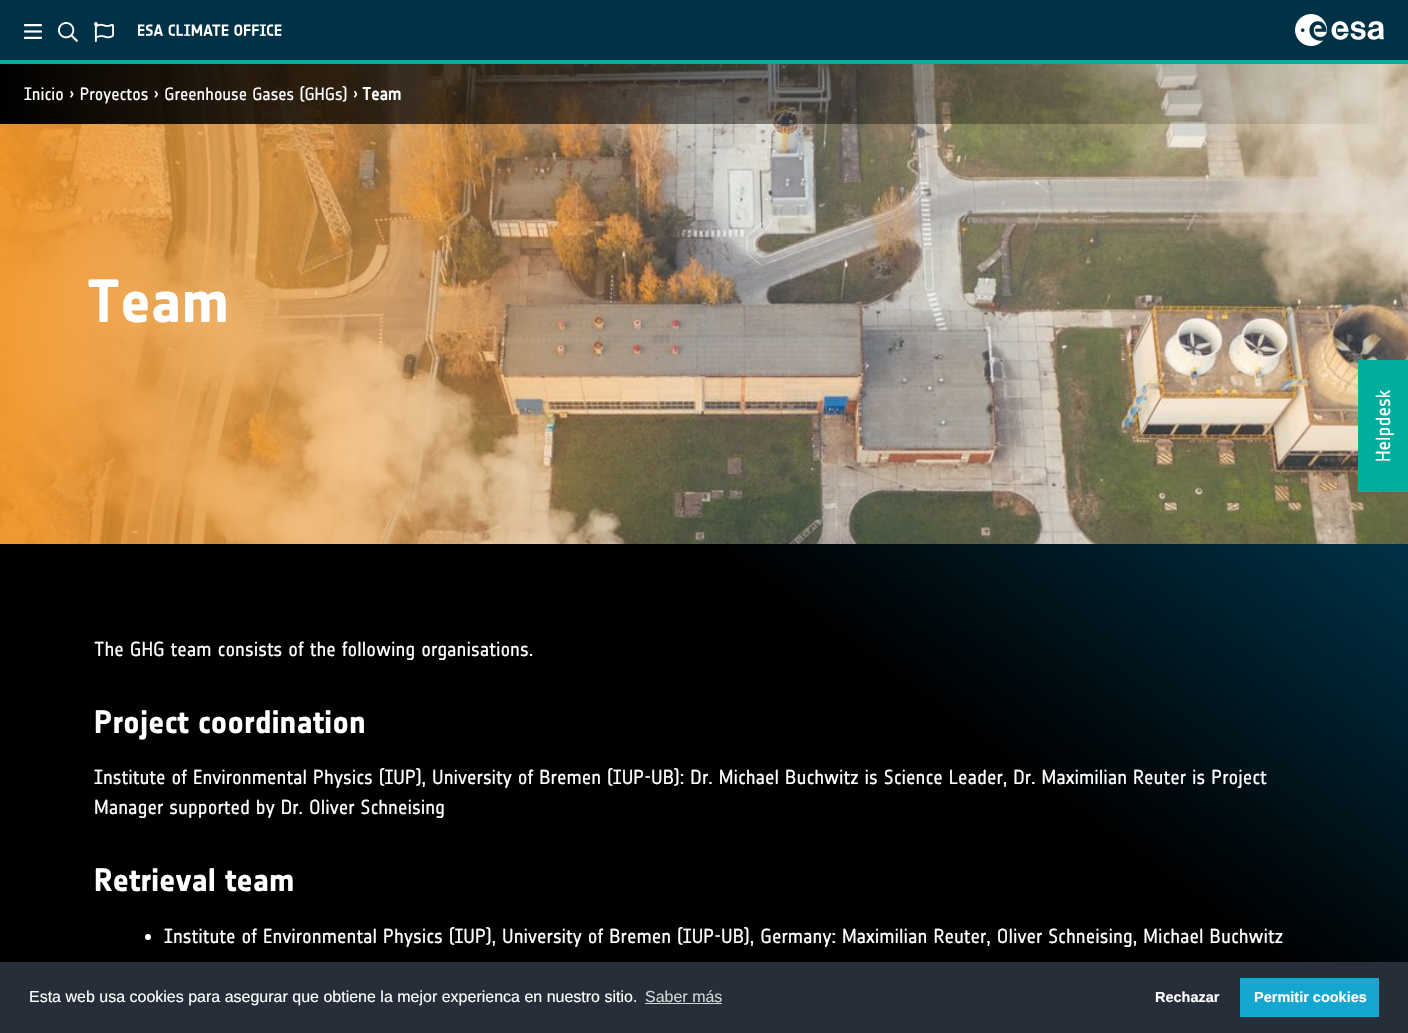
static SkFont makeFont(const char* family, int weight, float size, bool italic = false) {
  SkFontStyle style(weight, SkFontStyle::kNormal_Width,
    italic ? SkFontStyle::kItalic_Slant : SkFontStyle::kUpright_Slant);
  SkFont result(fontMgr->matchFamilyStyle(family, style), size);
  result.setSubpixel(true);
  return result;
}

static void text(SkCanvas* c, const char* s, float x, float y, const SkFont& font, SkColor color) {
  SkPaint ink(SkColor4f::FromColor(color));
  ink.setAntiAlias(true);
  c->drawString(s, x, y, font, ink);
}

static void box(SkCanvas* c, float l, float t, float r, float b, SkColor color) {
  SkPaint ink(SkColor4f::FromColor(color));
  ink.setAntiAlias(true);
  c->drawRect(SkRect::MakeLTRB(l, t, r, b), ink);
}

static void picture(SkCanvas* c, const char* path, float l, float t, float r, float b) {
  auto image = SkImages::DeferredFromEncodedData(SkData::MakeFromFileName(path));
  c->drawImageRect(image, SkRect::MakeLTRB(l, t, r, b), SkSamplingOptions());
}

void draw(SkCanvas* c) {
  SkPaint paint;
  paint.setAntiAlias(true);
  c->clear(0xffffffff);
  box(c, 0, 0, 1408, 60, 0xff003247);
  box(c, 0, 60, 1408, 64, 0xff00ae9d);
  picture(c, "img_01.png", 24, 24, 42, 39);
  picture(c, "img_02.png", 58, 22, 78, 42);
  picture(c, "img_03.png", 94, 22, 114, 42);
  picture(c, "img_04.png", 138, 24, 282, 36);
  picture(c, "img_05.png", 1295, 14, 1384, 46);
  picture(c, "img_06.png", 0, 64, 1408, 544);
  {
    const SkColor colors[] = {0x00000000, 0xff000000};
    const float stops[] = {0, 1};
    const SkPoint ends[] = {{1408, 92}, {0, 92}};
    paint.setShader(SkGradientShader::MakeLinear(ends, colors, stops, 2, SkTileMode::kClamp));
    paint.setAlpha(255);
  }
  c->drawRect(SkRect::MakeLTRB(0, 64, 1378, 124), paint);
  SkFont face1 = makeFont("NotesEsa", 400, 17.5f);
  text(c, "Inicio › Proyectos › Greenhouse Gases (GHGs) ›", 24, 100, face1, 0xffffffff);
  SkFont face2 = makeFont("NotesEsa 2", 700, 17.5f);
  text(c, "Team", 362, 100, face2, 0xffffffff);
  SkFont face3 = makeFont("NotesEsa", 700, 60);
  text(c, "Team", 87, 322, face3, 0xffffffff);
  box(c, 1358, 360, 1408, 492, 0xff00ae9d);
  SkFont face4 = makeFont("NotesEsa", 400, 20);
  c->save();
  c->rotate(-90, 1390, 462);
  text(c, "Helpdesk", 1390, 462, face4, 0xffffffff);
  c->restore();
  {
    const SkColor colors[] = {0xff000000, 0xff000000, 0xff003247};
    const float stops[] = {0, 0.75f, 1};
    const SkPoint ends[] = {{209, 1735}, {1199, 390}};
    paint.setShader(SkGradientShader::MakeLinear(ends, colors, stops, 3, SkTileMode::kClamp));
    paint.setAlpha(255);
  }
  c->drawRect(SkRect::MakeLTRB(0, 544, 1408, 962), paint);
  text(c, "The GHG team consists of the following organisations.", 94, 656, face4, 0xffffffff);
  SkFont face5 = makeFont("NotesEsa", 700, 32);
  text(c, "Project coordination", 94, 733, face5, 0xffffffff);
  text(c, "Institute of Environmental Physics (IUP), University of Bremen (IUP-UB): Dr. Michael Buchwitz is Science Leader, Dr. Maximilian Reuter is Project", 94, 784, face4, 0xffffffff);
  text(c, "Manager supported by Dr. Oliver Schneising", 94, 814, face4, 0xffffffff);
  text(c, "Retrieval team", 94, 891, face5, 0xffffffff);
  paint.setShader(nullptr);
  paint.setColor(0xffffffff);
  c->drawCircle(148, 937, 3, paint);
  text(c, "Institute of Environmental Physics (IUP), University of Bremen (IUP-UB), Germany: Maximilian Reuter, Oliver Schneising, Michael Buchwitz", 164, 943, face4, 0xffffffff);
  box(c, 0, 962, 1408, 1033, 0xff252e39);
  SkFont face6 = makeFont("Liberation Sans", 400, 16);
  text(c, "Esta web usa cookies para asegurar que obtiene la mejor experienca en nuestro sitio.", 29, 1002, face6, 0xffffffff);
  text(c, "Saber más", 645, 1002, face6, 0xffd3d5d7);
  box(c, 645, 1003, 722, 1004, 0xffd3d5d7);
  SkFont face7 = makeFont("Liberation Sans", 700, 14.5f);
  text(c, "Rechazar", 1155, 1002, face7, 0xffffffff);
  box(c, 1240, 978, 1379, 1017, 0xff14a7d0);
  text(c, "Permitir cookies", 1254, 1002, face7, 0xffffffff);
}
